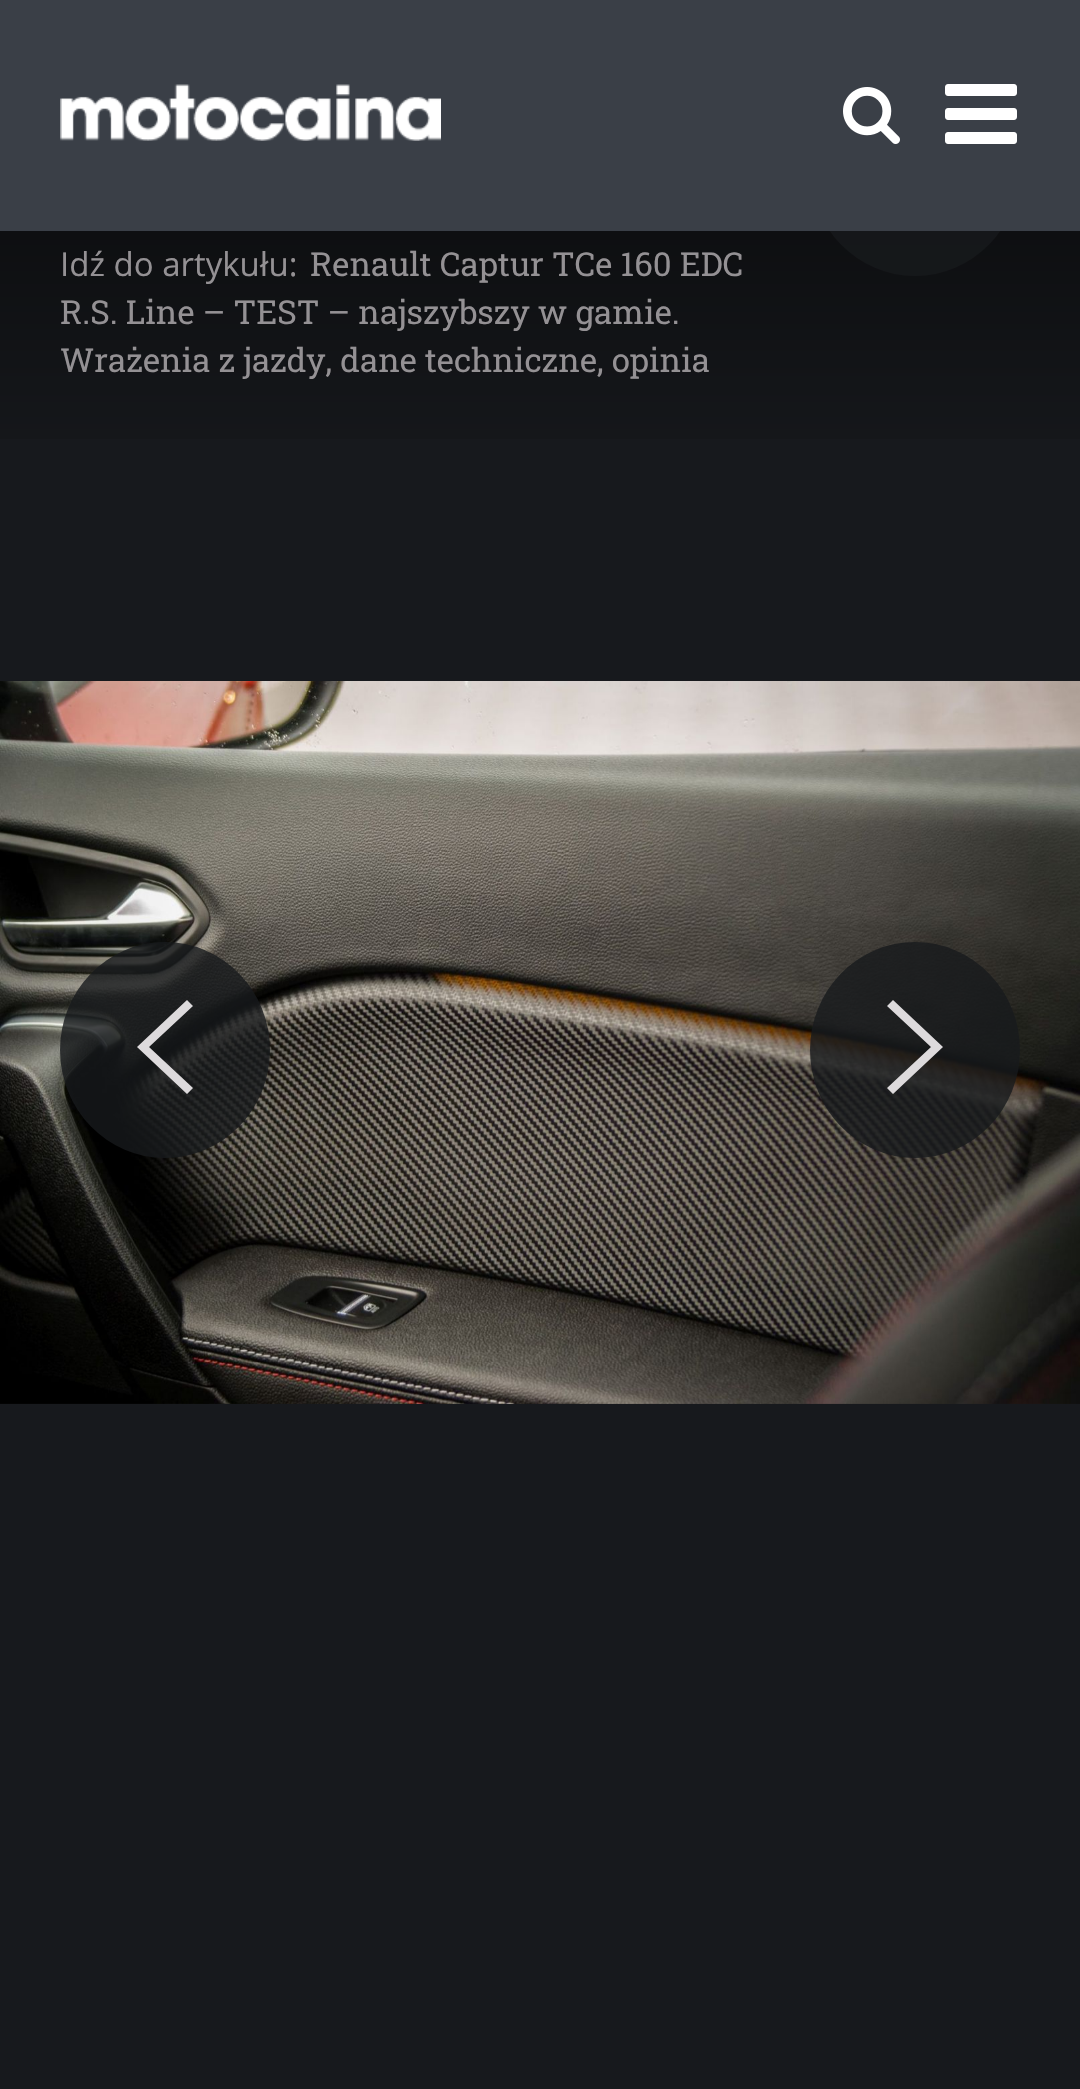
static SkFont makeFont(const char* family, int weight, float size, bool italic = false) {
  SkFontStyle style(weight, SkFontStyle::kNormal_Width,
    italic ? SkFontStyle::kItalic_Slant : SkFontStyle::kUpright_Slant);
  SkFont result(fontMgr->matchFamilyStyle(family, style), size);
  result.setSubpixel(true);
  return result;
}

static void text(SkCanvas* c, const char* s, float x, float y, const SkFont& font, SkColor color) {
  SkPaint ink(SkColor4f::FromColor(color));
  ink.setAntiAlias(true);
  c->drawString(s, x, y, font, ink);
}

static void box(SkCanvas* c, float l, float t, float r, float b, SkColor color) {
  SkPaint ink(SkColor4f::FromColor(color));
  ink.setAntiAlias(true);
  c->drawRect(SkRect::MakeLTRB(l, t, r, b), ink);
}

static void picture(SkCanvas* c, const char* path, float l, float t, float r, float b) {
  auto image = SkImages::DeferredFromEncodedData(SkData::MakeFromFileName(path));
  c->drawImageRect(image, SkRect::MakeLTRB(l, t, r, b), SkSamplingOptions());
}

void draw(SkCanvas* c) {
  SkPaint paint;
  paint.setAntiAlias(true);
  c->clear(0xff17191d);
  {
    const SkColor colors[] = {0xff0a0b0d, 0xff08090a, 0xff17191d};
    const float stops[] = {0, 0.12f, 0.8f};
    const SkPoint ends[] = {{540, 0}, {540, 618}};
    paint.setShader(SkGradientShader::MakeLinear(ends, colors, stops, 3, SkTileMode::kClamp));
    paint.setAlpha(255);
  }
  c->drawRect(SkRect::MakeLTRB(0, 231, 1080, 439), paint);
  paint.setShader(nullptr);
  paint.setColor(0xcc17191c);
  c->drawOval(SkRect::MakeLTRB(810, 60, 1020, 276), paint);
  box(c, 0, 0, 1080, 231, 0xff3a3f47);
  picture(c, "img_01.png", 60, 84, 441, 141);
  picture(c, "img_02.png", 843, 87, 900, 144);
  picture(c, "img_03.png", 945, 84, 1017, 144);
  SkFont face1 = makeFont("Open Sans", 400, 33);
  text(c, "Idź do artykułu:", 60, 276, face1, 0xff949194);
  SkFont face2 = makeFont("Roboto Slab", 400, 33);
  text(c, "Renault Captur TCe 160 EDC", 310, 276, face2, 0xff949194);
  text(c, "R.S. Line – TEST – najszybszy w gamie.", 60, 324, face2, 0xff949194);
  text(c, "Wrażenia z jazdy, dane techniczne, opinia", 60, 372, face2, 0xff949194);
  picture(c, "img_04.png", 0, 681, 1080, 1404);
  c->drawOval(SkRect::MakeLTRB(60, 942, 270, 1158), paint);
  paint.setColor(0xffdddadc);
  c->drawPath(SkPathBuilder(SkPathFillType::kEvenOdd).moveTo(193, 1006).lineTo(149, 1047).lineTo(193, 1088).lineTo(187, 1094).lineTo(137, 1047).lineTo(187, 1000).close().detach(), paint);
  paint.setColor(0xcc17191c);
  c->drawOval(SkRect::MakeLTRB(810, 942, 1020, 1158), paint);
  paint.setColor(0xffdddadc);
  c->drawPath(SkPathBuilder(SkPathFillType::kEvenOdd).moveTo(887, 1006).lineTo(893, 1000).lineTo(943, 1047).lineTo(893, 1094).lineTo(887, 1088).lineTo(931, 1047).close().detach(), paint);
}
